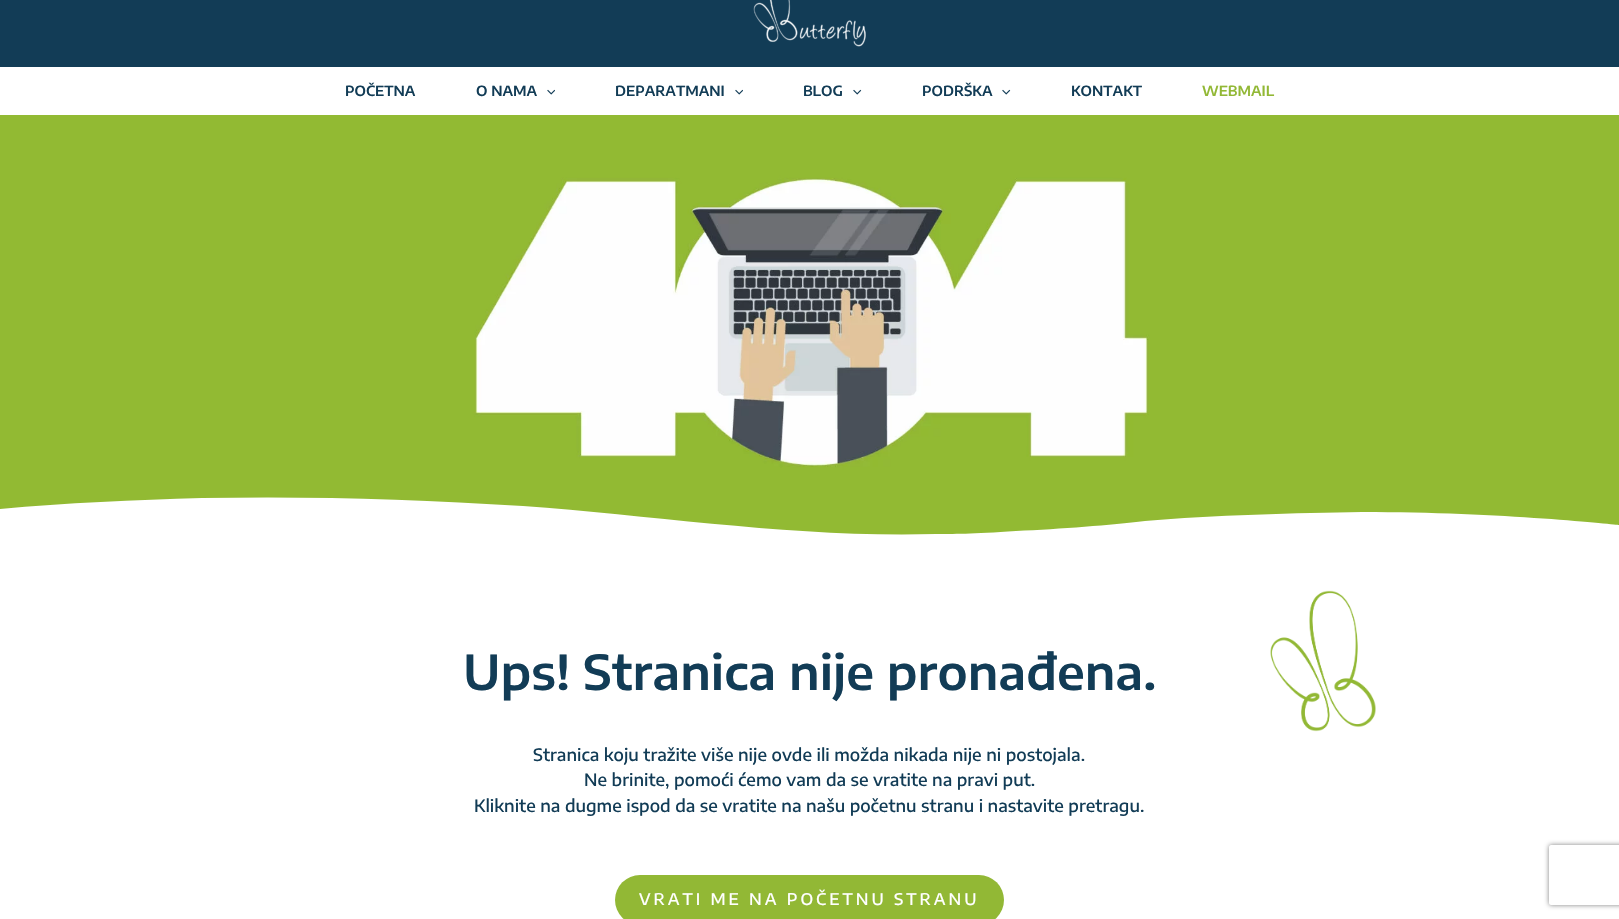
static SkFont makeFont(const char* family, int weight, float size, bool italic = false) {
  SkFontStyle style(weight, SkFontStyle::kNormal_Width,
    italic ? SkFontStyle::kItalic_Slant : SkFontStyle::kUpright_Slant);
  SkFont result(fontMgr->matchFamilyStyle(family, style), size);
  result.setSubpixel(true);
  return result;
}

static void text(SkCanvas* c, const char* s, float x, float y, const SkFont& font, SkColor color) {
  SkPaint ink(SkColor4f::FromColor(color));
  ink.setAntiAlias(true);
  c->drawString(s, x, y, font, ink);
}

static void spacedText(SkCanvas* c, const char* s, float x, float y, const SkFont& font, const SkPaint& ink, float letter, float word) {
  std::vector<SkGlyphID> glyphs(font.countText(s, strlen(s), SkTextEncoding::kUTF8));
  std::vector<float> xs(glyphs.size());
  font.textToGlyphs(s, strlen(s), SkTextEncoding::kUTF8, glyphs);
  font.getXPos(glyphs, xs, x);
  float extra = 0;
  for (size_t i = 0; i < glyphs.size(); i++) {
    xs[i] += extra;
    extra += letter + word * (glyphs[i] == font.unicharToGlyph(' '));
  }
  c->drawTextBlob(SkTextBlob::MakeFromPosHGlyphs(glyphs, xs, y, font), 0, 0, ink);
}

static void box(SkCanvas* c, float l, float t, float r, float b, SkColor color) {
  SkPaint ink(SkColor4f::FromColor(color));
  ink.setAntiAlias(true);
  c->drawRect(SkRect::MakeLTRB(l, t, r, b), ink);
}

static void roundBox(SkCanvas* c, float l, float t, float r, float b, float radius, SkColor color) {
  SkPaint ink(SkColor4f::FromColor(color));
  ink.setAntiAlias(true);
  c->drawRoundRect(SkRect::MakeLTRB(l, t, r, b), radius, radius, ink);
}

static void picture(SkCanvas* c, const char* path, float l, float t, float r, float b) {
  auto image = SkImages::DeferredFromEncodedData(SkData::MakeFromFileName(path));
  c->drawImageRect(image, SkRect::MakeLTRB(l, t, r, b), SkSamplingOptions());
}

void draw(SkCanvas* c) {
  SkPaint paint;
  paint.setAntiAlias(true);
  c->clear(0xffffffff);
  box(c, 0, 0, 1619, 67, 0xff123c56);
  picture(c, "img_01.png", 753, 0, 866, 47);
  SkFont face1 = makeFont("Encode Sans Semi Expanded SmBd", 600, 14);
  text(c, "POČETNA", 345, 96, face1, 0xff123c56);
  text(c, "O NAMA", 476, 96, face1, 0xff123c56);
  picture(c, "img_02.png", 547, 89, 555, 95);
  text(c, "DEPARATMANI", 615, 96, face1, 0xff123c56);
  picture(c, "img_02.png", 735, 89, 743, 95);
  text(c, "BLOG", 803, 96, face1, 0xff123c56);
  picture(c, "img_03.png", 853, 89, 862, 95);
  text(c, "PODRŠKA", 922, 96, face1, 0xff123c56);
  picture(c, "img_03.png", 1002, 89, 1011, 95);
  text(c, "KONTAKT", 1071, 96, face1, 0xff123c56);
  text(c, "WEBMAIL", 1202, 96, face1, 0xff92b835);
  picture(c, "img_04.png", 0, 115, 1619, 535);
  c->save();
  c->clipRect(SkRect::MakeLTRB(0, 496, 1619, 536));
  paint.setColor(0xffffffff);
  c->drawPath(SkPathBuilder().moveTo(936, 534).cubicTo(797, 538, 660, 516, 523, 506).cubicTo(416, 499, 309, 496, 202, 498).cubicTo(134, 500, 66, 503, -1, 509).lineTo(-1, 537).lineTo(1619, 537).lineTo(1619, 525).cubicTo(1619, 525, 1502, 512, 1362, 512).cubicTo(1299, 513, 1212, 515, 1145, 521).cubicTo(1111, 525, 1061, 529, 1016, 531).cubicTo(972, 534, 952, 534, 936, 534).close().detach(), paint);
  c->restore();
  SkFont face2 = makeFont("Encode Sans Semi Expanded SmBd", 600, 48);
  text(c, "Ups! Stranica nije pronađena.", 463, 690, face2, 0xff123c56);
  picture(c, "img_05.png", 1270, 590, 1376, 732);
  SkFont face3 = makeFont("Encode Sans Semi Expanded", 500, 17);
  text(c, "Stranica koju tražite više nije ovde ili možda nikada nije ni postojala.", 533, 761, face3, 0xff123c56);
  text(c, "Ne brinite, pomoći ćemo vam da se vratite na pravi put.", 584, 786, face3, 0xff123c56);
  text(c, "Kliknite na dugme ispod da se vratite na našu početnu stranu i nastavite pretragu.", 474, 812, face3, 0xff123c56);
  roundBox(c, 615, 875, 1004, 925, 25, 0xff92b835);
  SkFont face4 = makeFont("Encode Sans Semi Expanded", 500, 16);
  spacedText(c, "VRATI ME NA POČETNU STRANU", 639, 905, face4, paint, 3, 0);
  c->save();
  c->clipPath(SkPathBuilder(SkPathFillType::kEvenOdd).moveTo(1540, 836).lineTo(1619, 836).lineTo(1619, 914).lineTo(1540, 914).close().moveTo(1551, 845).lineTo(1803, 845).cubicTo(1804, 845, 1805, 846, 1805, 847).lineTo(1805, 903).cubicTo(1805, 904, 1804, 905, 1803, 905).lineTo(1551, 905).cubicTo(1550, 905, 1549, 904, 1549, 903).lineTo(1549, 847).cubicTo(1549, 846, 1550, 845, 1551, 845).close().detach(), true);
  paint.setColor(0xff808080);
  paint.setMaskFilter(SkMaskFilter::MakeBlur(kNormal_SkBlurStyle, 2.5f));
  c->drawRoundRect(SkRect::MakeLTRB(1549, 845, 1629, 905), 2, 2, paint);
  paint.setMaskFilter(nullptr);
  c->restore();
}
